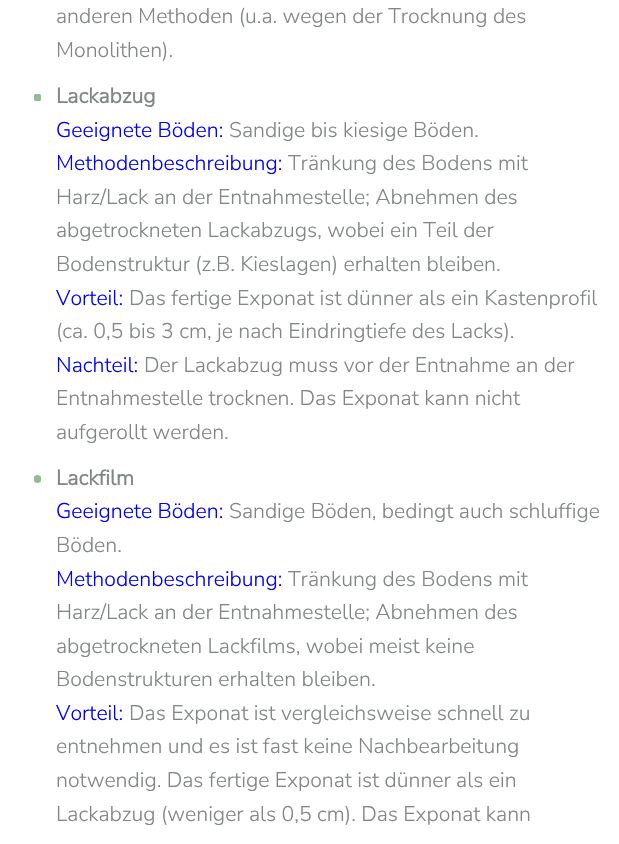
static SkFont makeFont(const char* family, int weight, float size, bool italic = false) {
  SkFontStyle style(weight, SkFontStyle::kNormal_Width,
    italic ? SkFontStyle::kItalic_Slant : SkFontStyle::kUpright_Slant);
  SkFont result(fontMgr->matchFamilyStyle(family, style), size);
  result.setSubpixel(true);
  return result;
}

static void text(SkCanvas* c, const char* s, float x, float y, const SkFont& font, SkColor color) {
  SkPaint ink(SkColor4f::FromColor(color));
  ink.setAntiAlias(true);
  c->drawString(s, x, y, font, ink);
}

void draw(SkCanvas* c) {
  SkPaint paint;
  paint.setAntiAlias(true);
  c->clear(0xffffffff);
  SkFont face1 = makeFont("Nunito Sans", 200, 21.25f);
  text(c, "anderen Methoden (u.a. wegen der Trocknung des", 56, 23, face1, 0xff808682);
  text(c, "Monolithen).", 56, 57, face1, 0xff808682);
  c->save();
  c->clipRect(SkRect::MakeLTRB(34, 94, 41, 101));
  paint.setColor(0xff8fbd8f);
  c->drawCircle(37.5f, 97.5f, 4, paint);
  c->restore();
  SkFont face2 = makeFont("Nunito Sans", 700, 21.25f);
  text(c, "Lackabzug", 56, 103, face2, 0xff808682);
  text(c, "Geeignete Böden:", 56, 137, face1, 0xff0000ff);
  text(c, "Sandige bis kiesige Böden.", 229, 137, face1, 0xff808682);
  text(c, "Methodenbeschreibung:", 56, 170, face1, 0xff0000ff);
  text(c, "Tränkung des Bodens mit", 288, 170, face1, 0xff808682);
  text(c, "Harz/Lack an der Entnahmestelle; Abnehmen des", 56, 204, face1, 0xff808682);
  text(c, "abgetrockneten Lackabzugs, wobei ein Teil der", 56, 237, face1, 0xff808682);
  text(c, "Bodenstruktur (z.B. Kieslagen) erhalten bleiben.", 56, 271, face1, 0xff808682);
  text(c, "Vorteil:", 56, 305, face1, 0xff0000ff);
  text(c, "Das fertige Exponat ist dünner als ein Kastenprofil", 129, 305, face1, 0xff808682);
  text(c, "(ca. 0,5 bis 3 cm, je nach Eindringtiefe des Lacks).", 56, 338, face1, 0xff808682);
  text(c, "Nachteil:", 56, 372, face1, 0xff0000ff);
  text(c, "Der Lackabzug muss vor der Entnahme an der", 144, 372, face1, 0xff808682);
  text(c, "Entnahmestelle trocknen. Das Exponat kann nicht", 56, 405, face1, 0xff808682);
  text(c, "aufgerollt werden.", 56, 439, face1, 0xff808682);
  c->save();
  c->clipRect(SkRect::MakeLTRB(34, 475, 41, 483));
  c->drawCircle(37.5f, 479, 4, paint);
  c->restore();
  text(c, "Lackfilm", 56, 485, face2, 0xff808682);
  text(c, "Geeignete Böden:", 56, 518, face1, 0xff0000ff);
  text(c, "Sandige Böden, bedingt auch schluffige", 229, 518, face1, 0xff808682);
  text(c, "Böden.", 56, 552, face1, 0xff808682);
  text(c, "Methodenbeschreibung:", 56, 586, face1, 0xff0000ff);
  text(c, "Tränkung des Bodens mit", 288, 586, face1, 0xff808682);
  text(c, "Harz/Lack an der Entnahmestelle; Abnehmen des", 56, 619, face1, 0xff808682);
  text(c, "abgetrockneten Lackfilms, wobei meist keine", 56, 653, face1, 0xff808682);
  text(c, "Bodenstrukturen erhalten bleiben.", 56, 686, face1, 0xff808682);
  text(c, "Vorteil:", 56, 720, face1, 0xff0000ff);
  text(c, "Das Exponat ist vergleichsweise schnell zu", 129, 720, face1, 0xff808682);
  text(c, "entnehmen und es ist fast keine Nachbearbeitung", 56, 753, face1, 0xff808682);
  text(c, "notwendig. Das fertige Exponat ist dünner als ein", 56, 787, face1, 0xff808682);
  text(c, "Lackabzug (weniger als 0,5 cm). Das Exponat kann", 56, 821, face1, 0xff808682);
}
